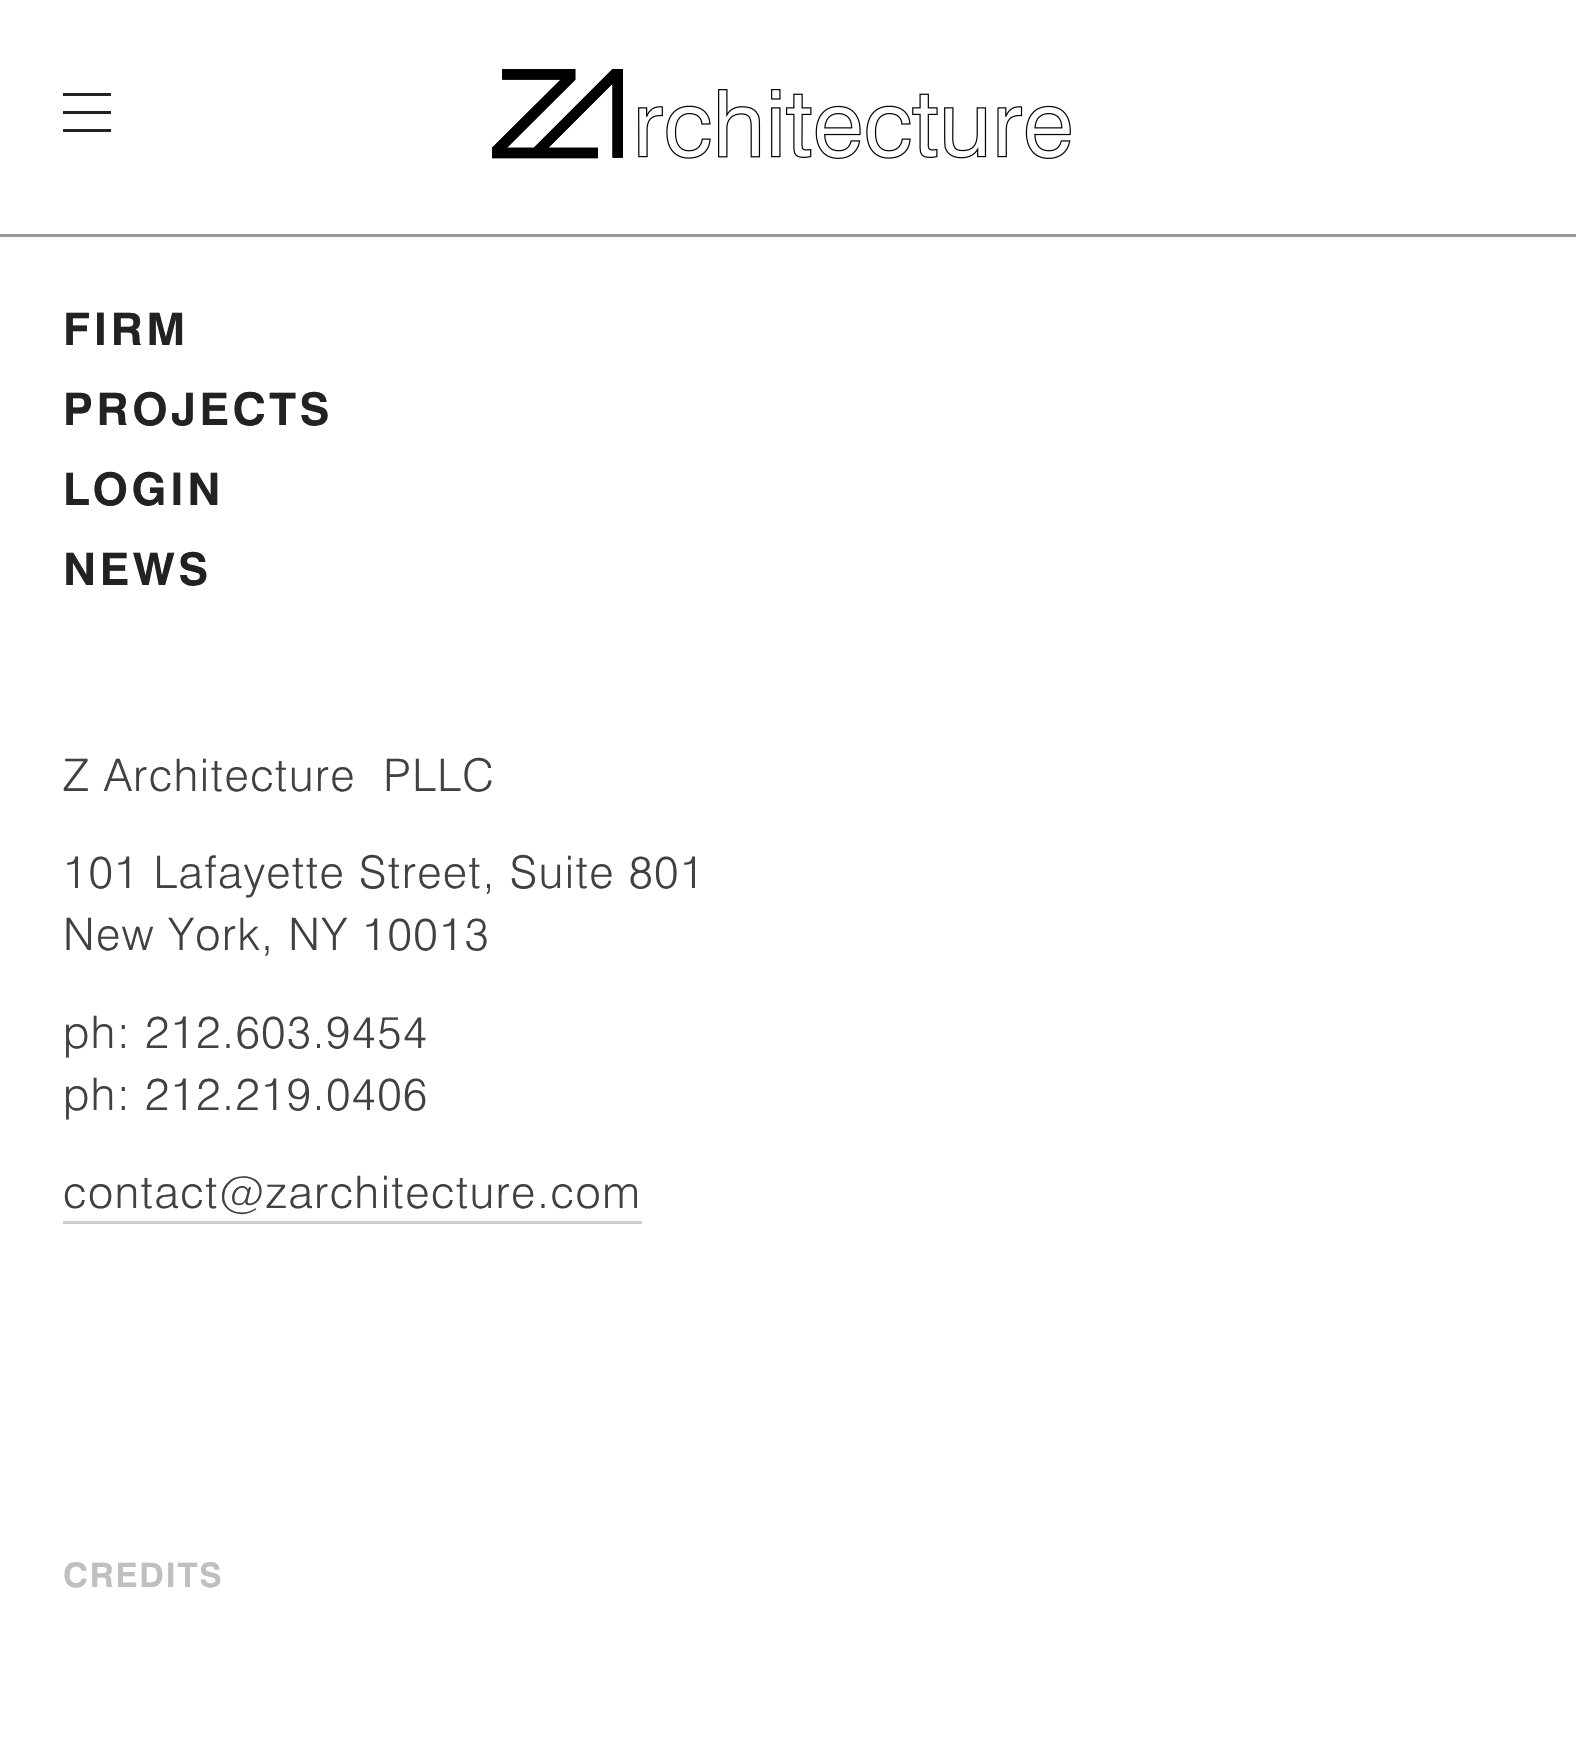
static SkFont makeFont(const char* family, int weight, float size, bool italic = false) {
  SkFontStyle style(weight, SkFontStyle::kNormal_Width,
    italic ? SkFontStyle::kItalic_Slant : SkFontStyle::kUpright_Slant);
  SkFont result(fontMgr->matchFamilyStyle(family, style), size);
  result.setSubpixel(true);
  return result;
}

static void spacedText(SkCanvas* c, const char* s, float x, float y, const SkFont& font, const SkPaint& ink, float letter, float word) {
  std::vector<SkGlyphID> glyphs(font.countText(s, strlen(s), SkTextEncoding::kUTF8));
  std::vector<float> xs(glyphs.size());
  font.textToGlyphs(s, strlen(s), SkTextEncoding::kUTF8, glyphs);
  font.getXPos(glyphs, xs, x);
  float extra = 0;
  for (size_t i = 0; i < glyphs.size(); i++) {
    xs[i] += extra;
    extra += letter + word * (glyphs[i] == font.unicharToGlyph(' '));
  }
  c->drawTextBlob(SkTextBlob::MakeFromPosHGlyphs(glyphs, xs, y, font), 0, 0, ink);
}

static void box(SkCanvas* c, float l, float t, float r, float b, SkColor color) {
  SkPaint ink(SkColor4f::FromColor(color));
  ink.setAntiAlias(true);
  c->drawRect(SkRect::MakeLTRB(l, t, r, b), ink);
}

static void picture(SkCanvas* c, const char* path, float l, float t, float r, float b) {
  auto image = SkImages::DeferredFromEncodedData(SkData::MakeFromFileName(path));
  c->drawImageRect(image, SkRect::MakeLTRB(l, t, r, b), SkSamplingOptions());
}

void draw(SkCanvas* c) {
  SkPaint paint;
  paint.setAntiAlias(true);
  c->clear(0xffffffff);
  box(c, 0, 234, 1576, 237, 0xff999999);
  picture(c, "img_01.png", 492, 69, 1071, 159);
  box(c, 63, 93, 111, 96, 0xff222222);
  box(c, 63, 111, 111, 114, 0xff222222);
  box(c, 63, 129, 111, 132, 0xff222222);
  SkFont face1 = makeFont("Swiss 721", 700, 45);
  paint.setColor(0xff222222);
  spacedText(c, "FIRM", 63, 345, face1, paint, 3.5f, 0);
  spacedText(c, "PROJECTS", 63, 425, face1, paint, 3.5f, 0);
  spacedText(c, "LOGIN", 63, 505, face1, paint, 3.5f, 0);
  spacedText(c, "NEWS", 63, 585, face1, paint, 3.5f, 0);
  SkFont face2 = makeFont("Swiss 721", 300, 45);
  paint.setColor(0xff414141);
  spacedText(c, "Z Architecture  PLLC", 63, 791, face2, paint, 1.7f, 0);
  spacedText(c, "101 Lafayette Street, Suite 801", 63, 888, face2, paint, 1.7f, 0);
  spacedText(c, "New York, NY 10013", 63, 950, face2, paint, 1.7f, 0);
  spacedText(c, "ph: 212.603.9454", 63, 1048, face2, paint, 1.7f, 0);
  spacedText(c, "ph: 212.219.0406", 63, 1110, face2, paint, 1.7f, 0);
  spacedText(c, "contact@zarchitecture.com", 63, 1208, face2, paint, 1.7f, 0);
  box(c, 63, 1221, 642, 1224, 0xffcccccc);
  SkFont face3 = makeFont("Swiss 721", 700, 33.75f);
  paint.setColor(0xffbfbfbf);
  spacedText(c, "CREDITS", 63, 1587, face3, paint, 1.7f, 0);
}
